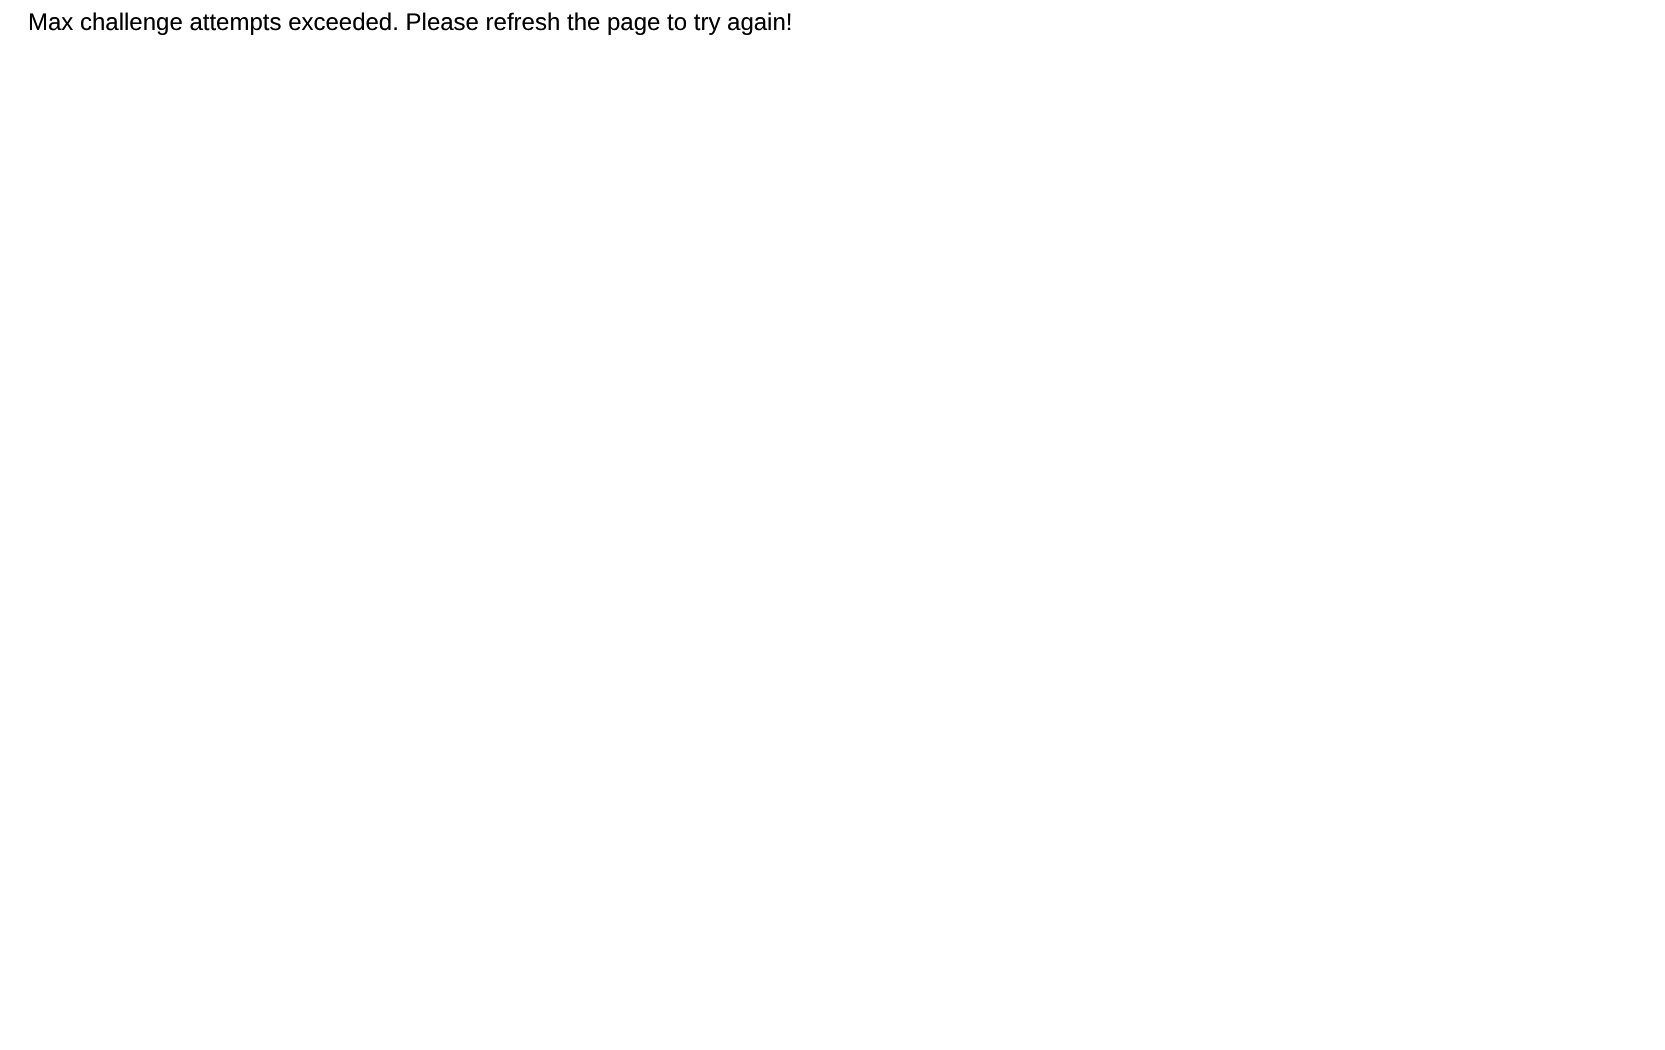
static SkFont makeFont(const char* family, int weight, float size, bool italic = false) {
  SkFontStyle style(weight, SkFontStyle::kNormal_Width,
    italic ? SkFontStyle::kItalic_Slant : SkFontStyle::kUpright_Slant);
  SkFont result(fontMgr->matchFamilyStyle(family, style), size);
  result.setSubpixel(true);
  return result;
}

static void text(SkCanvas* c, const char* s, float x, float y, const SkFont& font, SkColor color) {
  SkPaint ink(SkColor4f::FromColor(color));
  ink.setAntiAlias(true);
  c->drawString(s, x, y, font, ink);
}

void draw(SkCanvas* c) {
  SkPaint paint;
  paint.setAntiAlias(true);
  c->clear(0xffffffff);
  SkFont face1 = makeFont("Liberation Sans", 400, 24);
  text(c, "Max challenge attempts exceeded. Please refresh the page to try again!", 28, 30, face1, 0xff000000);
}
